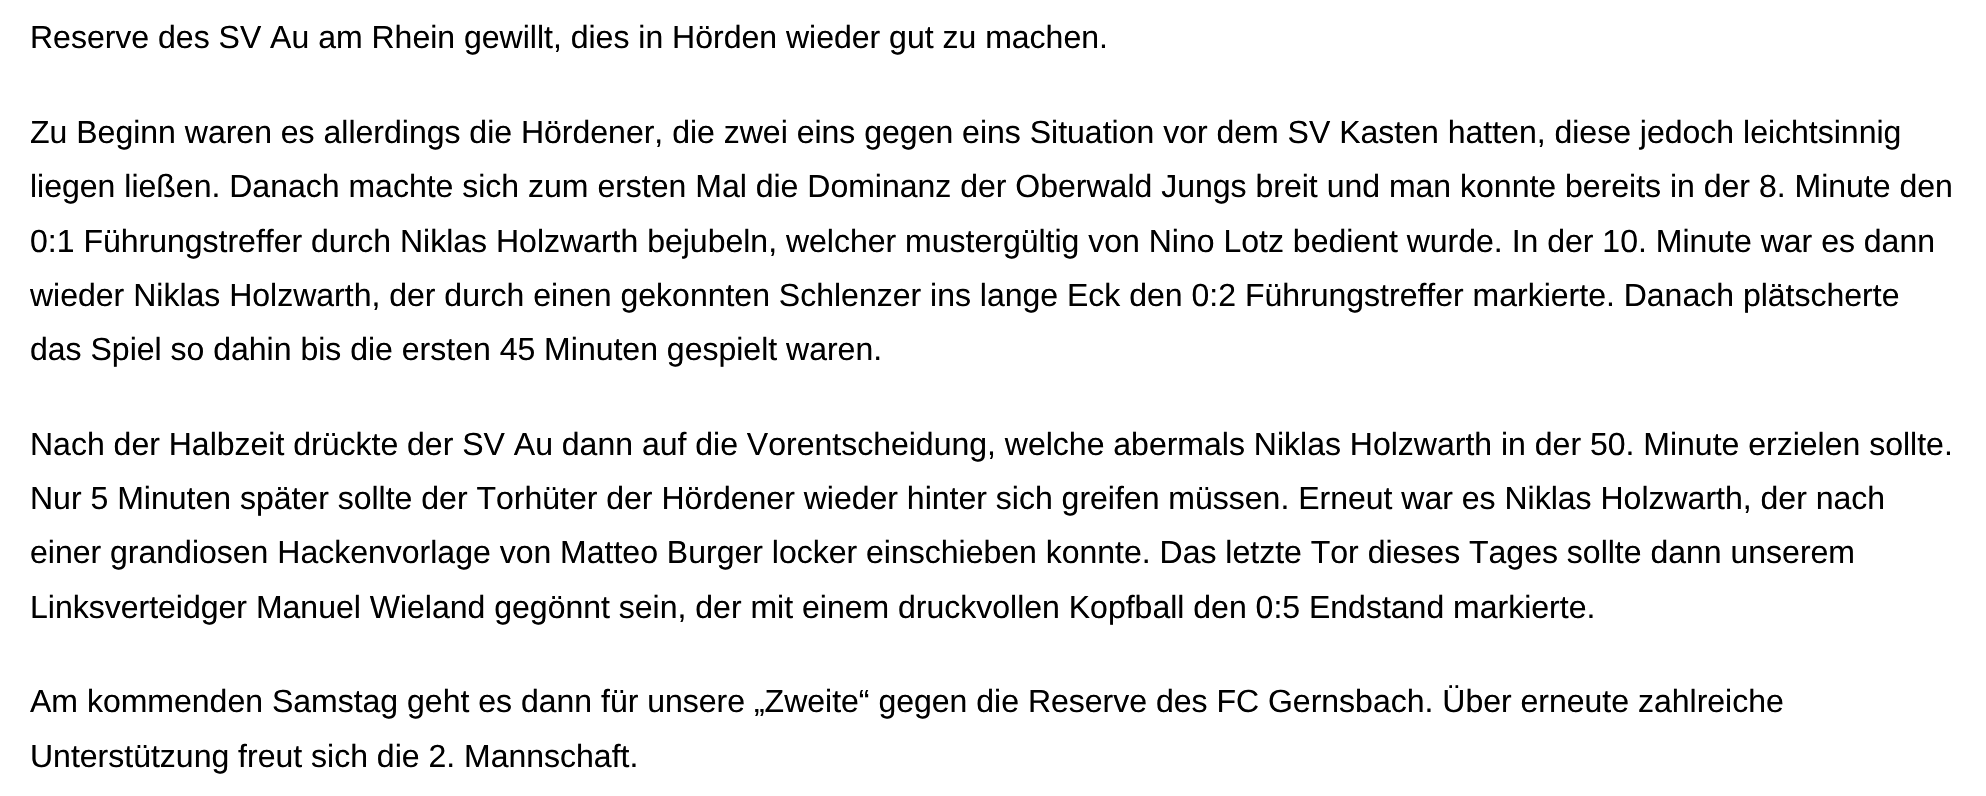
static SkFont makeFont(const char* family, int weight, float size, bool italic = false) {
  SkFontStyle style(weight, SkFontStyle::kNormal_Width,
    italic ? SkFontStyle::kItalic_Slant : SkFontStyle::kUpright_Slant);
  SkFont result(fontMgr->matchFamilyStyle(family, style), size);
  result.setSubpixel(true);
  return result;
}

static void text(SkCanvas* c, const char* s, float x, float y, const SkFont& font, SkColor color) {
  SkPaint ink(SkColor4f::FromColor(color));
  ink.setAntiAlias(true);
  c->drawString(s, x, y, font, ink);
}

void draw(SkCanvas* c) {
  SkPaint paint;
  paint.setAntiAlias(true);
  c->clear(0xffffffff);
  SkFont face1 = makeFont("Liberation Sans", 400, 32);
  text(c, "Reserve des SV Au am Rhein gewillt, dies in Hörden wieder gut zu machen.", 30, 48, face1, 0xff000000);
  text(c, "Zu Beginn waren es allerdings die Hördener, die zwei eins gegen eins Situation vor dem SV Kasten hatten, diese jedoch leichtsinnig", 30, 143, face1, 0xff000000);
  text(c, "liegen ließen. Danach machte sich zum ersten Mal die Dominanz der Oberwald Jungs breit und man konnte bereits in der 8. Minute den", 30, 197, face1, 0xff000000);
  text(c, "0:1 Führungstreffer durch Niklas Holzwarth bejubeln, welcher mustergültig von Nino Lotz bedient wurde. In der 10. Minute war es dann", 30, 252, face1, 0xff000000);
  text(c, "wieder Niklas Holzwarth, der durch einen gekonnten Schlenzer ins lange Eck den 0:2 Führungstreffer markierte. Danach plätscherte", 30, 306, face1, 0xff000000);
  text(c, "das Spiel so dahin bis die ersten 45 Minuten gespielt waren.", 30, 360, face1, 0xff000000);
  text(c, "Nach der Halbzeit drückte der SV Au dann auf die Vorentscheidung, welche abermals Niklas Holzwarth in der 50. Minute erzielen sollte.", 30, 455, face1, 0xff000000);
  text(c, "Nur 5 Minuten später sollte der Torhüter der Hördener wieder hinter sich greifen müssen. Erneut war es Niklas Holzwarth, der nach", 30, 509, face1, 0xff000000);
  text(c, "einer grandiosen Hackenvorlage von Matteo Burger locker einschieben konnte. Das letzte Tor dieses Tages sollte dann unserem", 30, 563, face1, 0xff000000);
  text(c, "Linksverteidger Manuel Wieland gegönnt sein, der mit einem druckvollen Kopfball den 0:5 Endstand markierte.", 30, 618, face1, 0xff000000);
  text(c, "Am kommenden Samstag geht es dann für unsere „Zweite“ gegen die Reserve des FC Gernsbach. Über erneute zahlreiche", 30, 712, face1, 0xff000000);
  text(c, "Unterstützung freut sich die 2. Mannschaft.", 30, 767, face1, 0xff000000);
}
